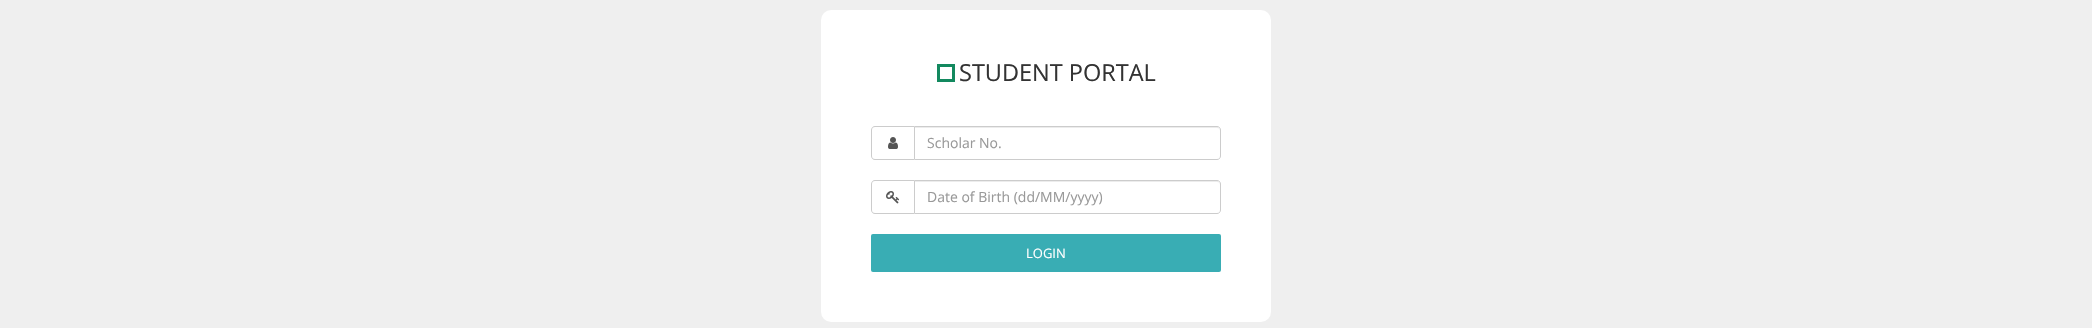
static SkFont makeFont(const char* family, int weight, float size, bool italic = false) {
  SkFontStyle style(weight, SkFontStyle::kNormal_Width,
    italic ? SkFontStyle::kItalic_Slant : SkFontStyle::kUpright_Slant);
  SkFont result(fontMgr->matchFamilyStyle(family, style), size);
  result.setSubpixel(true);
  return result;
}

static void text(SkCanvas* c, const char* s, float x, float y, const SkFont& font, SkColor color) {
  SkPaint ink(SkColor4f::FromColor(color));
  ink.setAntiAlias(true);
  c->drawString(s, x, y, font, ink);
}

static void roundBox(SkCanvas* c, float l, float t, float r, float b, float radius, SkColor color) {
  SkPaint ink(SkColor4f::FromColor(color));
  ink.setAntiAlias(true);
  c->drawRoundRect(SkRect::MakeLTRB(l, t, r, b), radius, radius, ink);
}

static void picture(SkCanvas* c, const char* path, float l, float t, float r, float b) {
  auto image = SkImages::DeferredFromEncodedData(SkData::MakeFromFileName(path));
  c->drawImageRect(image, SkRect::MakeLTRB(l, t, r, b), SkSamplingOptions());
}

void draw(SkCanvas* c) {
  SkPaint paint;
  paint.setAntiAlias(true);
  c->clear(0xffefefef);
  roundBox(c, 821, 10, 1271, 322, 10, 0xffffffff);
  paint.setStyle(SkPaint::kStroke_Style);
  paint.setStrokeWidth(3);
  paint.setColor(0xff13895f);
  c->drawRect(SkRect::MakeLTRB(938.5f, 65.5f, 953.5f, 80.5f), paint);
  SkFont face1 = makeFont("Open Sans", 400, 23.5f);
  text(c, "STUDENT PORTAL", 959, 81, face1, 0xff333333);
  paint.setStyle(SkPaint::kFill_Style);
  paint.setColor(0xffcccccc);
  c->drawPath(SkPathBuilder(SkPathFillType::kEvenOdd).moveTo(875, 126).lineTo(914, 126).lineTo(914, 160).lineTo(875, 160).cubicTo(873, 160, 871, 158, 871, 156).lineTo(871, 130).cubicTo(871, 128, 873, 126, 875, 126).close().moveTo(875, 127).lineTo(914, 127).lineTo(914, 159).lineTo(875, 159).cubicTo(873, 159, 872, 158, 872, 156).lineTo(872, 130).cubicTo(872, 128, 873, 127, 875, 127).close().detach(), paint);
  picture(c, "img_01.png", 888, 137, 898, 149);
  paint.setColor(0xffececec);
  c->drawPath(SkPathBuilder().moveTo(915, 128).lineTo(1217, 128).cubicTo(1219, 128, 1220, 129, 1220, 131).cubicTo(1220, 129, 1219, 127, 1217, 127).lineTo(915, 127).close().detach(), paint);
  paint.setStyle(SkPaint::kStroke_Style);
  paint.setStrokeWidth(1);
  paint.setColor(0xffcccccc);
  c->drawPath(SkPathBuilder().moveTo(914.5f, 126.5f).lineTo(1217, 126.5f).cubicTo(1219, 126.5f, 1220.5f, 128, 1220.5f, 130).lineTo(1220.5f, 156).cubicTo(1220.5f, 158, 1219, 159.5f, 1217, 159.5f).lineTo(914.5f, 159.5f).close().detach(), paint);
  SkFont face2 = makeFont("Open Sans", 400, 14);
  text(c, "Scholar No.", 927, 148, face2, 0xff999999);
  paint.setStyle(SkPaint::kFill_Style);
  c->drawPath(SkPathBuilder(SkPathFillType::kEvenOdd).moveTo(875, 180).lineTo(914, 180).lineTo(914, 214).lineTo(875, 214).cubicTo(873, 214, 871, 212, 871, 210).lineTo(871, 184).cubicTo(871, 182, 873, 180, 875, 180).close().moveTo(875, 181).lineTo(914, 181).lineTo(914, 213).lineTo(875, 213).cubicTo(873, 213, 872, 212, 872, 210).lineTo(872, 184).cubicTo(872, 182, 873, 181, 875, 181).close().detach(), paint);
  picture(c, "img_02.png", 886, 191, 900, 204);
  paint.setColor(0xffececec);
  c->drawPath(SkPathBuilder().moveTo(915, 182).lineTo(1217, 182).cubicTo(1219, 182, 1220, 183, 1220, 185).cubicTo(1220, 183, 1219, 181, 1217, 181).lineTo(915, 181).close().detach(), paint);
  paint.setStyle(SkPaint::kStroke_Style);
  paint.setColor(0xffcccccc);
  c->drawPath(SkPathBuilder().moveTo(914.5f, 180.5f).lineTo(1217, 180.5f).cubicTo(1219, 180.5f, 1220.5f, 182, 1220.5f, 184).lineTo(1220.5f, 210).cubicTo(1220.5f, 212, 1219, 213.5f, 1217, 213.5f).lineTo(914.5f, 213.5f).close().detach(), paint);
  text(c, "Date of Birth (dd/MM/yyyy)", 927, 202, face2, 0xff999999);
  roundBox(c, 871, 234, 1221, 272, 2, 0xff39adb4);
  SkFont face3 = makeFont("Open Sans", 400, 13);
  text(c, "LOGIN", 1026, 258, face3, 0xffffffff);
}
